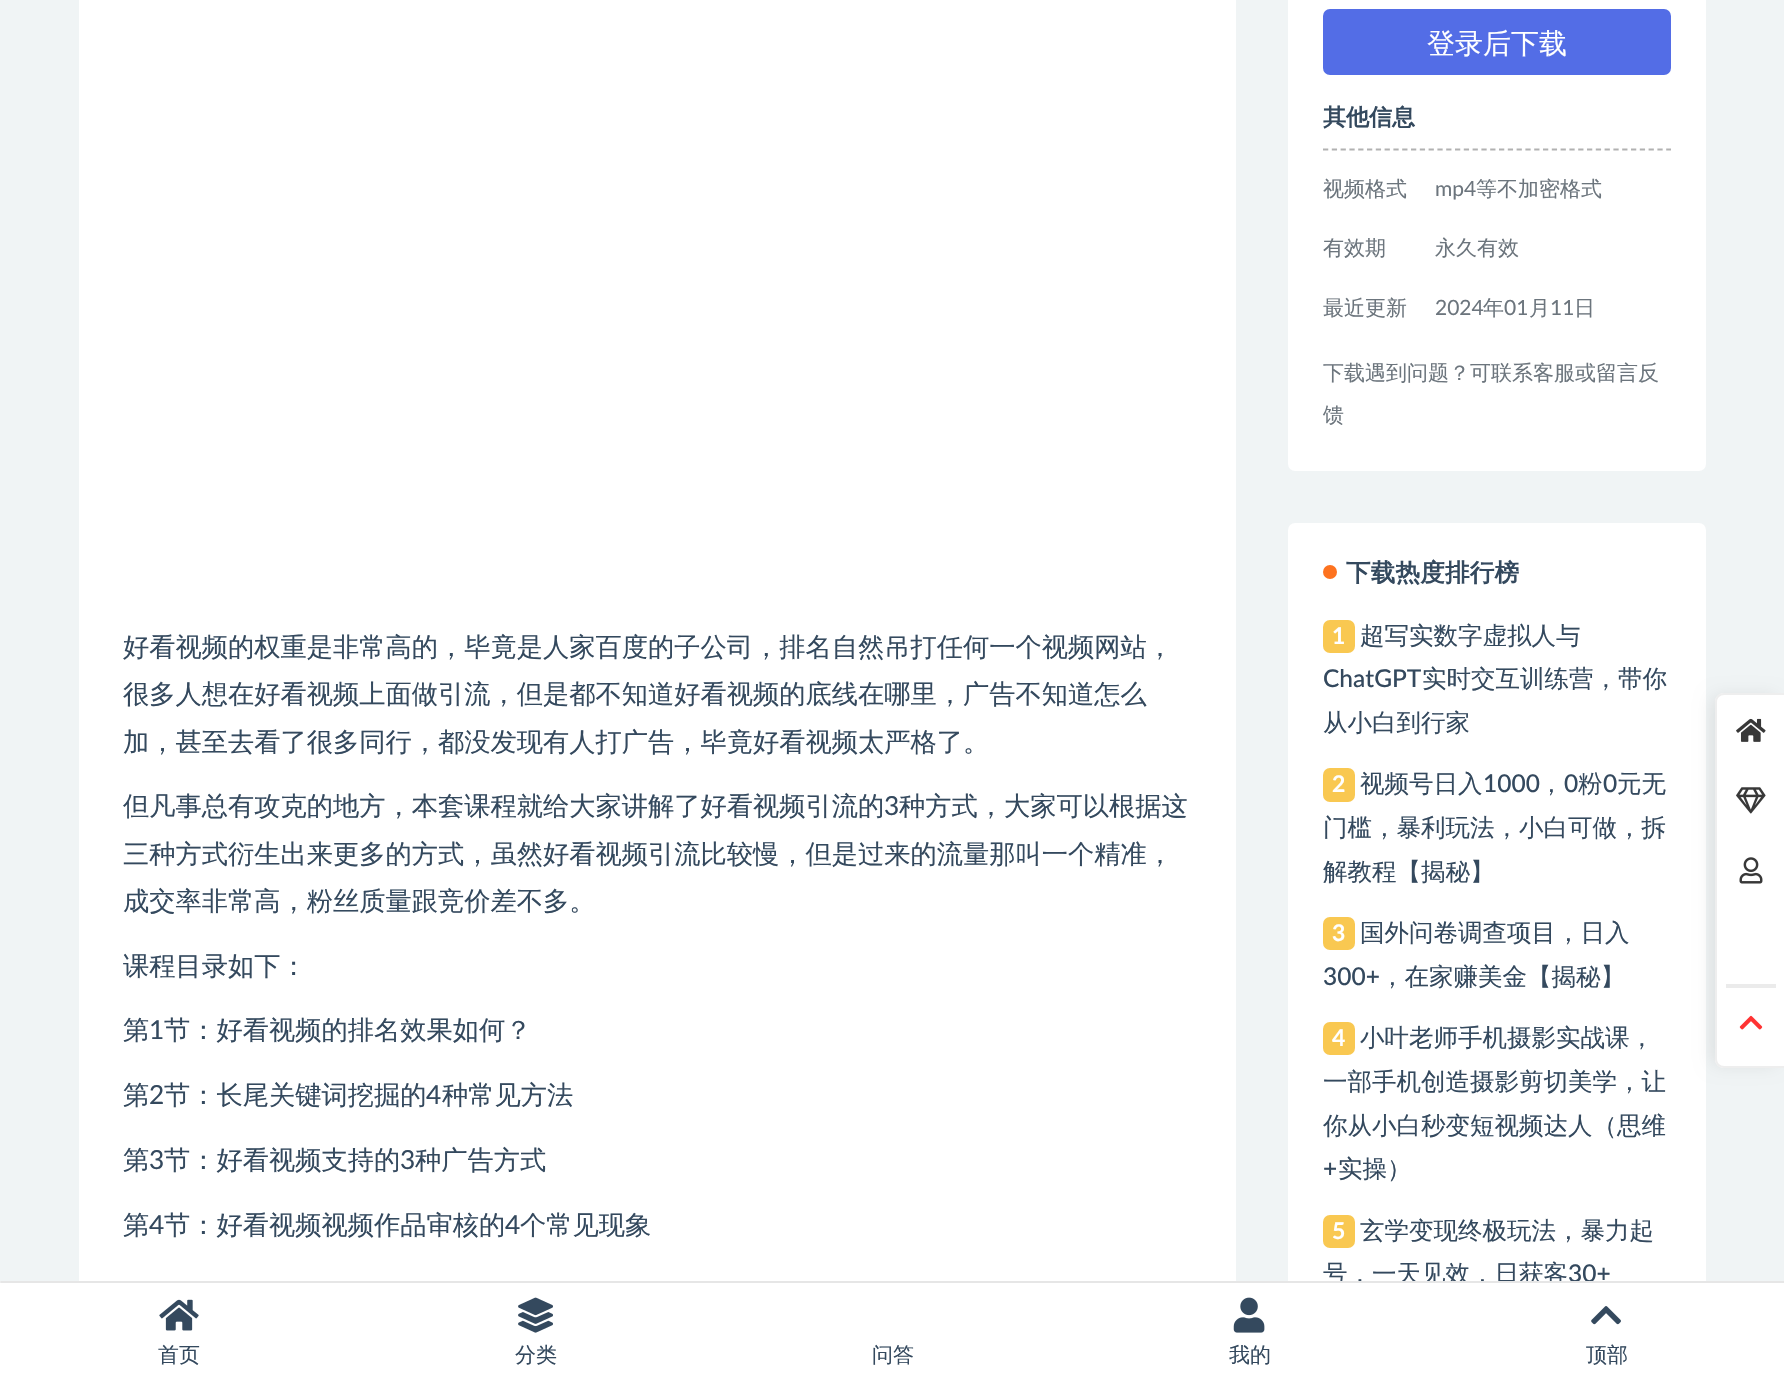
static SkFont makeFont(const char* family, int weight, float size, bool italic = false) {
  SkFontStyle style(weight, SkFontStyle::kNormal_Width,
    italic ? SkFontStyle::kItalic_Slant : SkFontStyle::kUpright_Slant);
  SkFont result(fontMgr->matchFamilyStyle(family, style), size);
  result.setSubpixel(true);
  return result;
}

static void text(SkCanvas* c, const char* s, float x, float y, const SkFont& font, SkColor color) {
  SkPaint ink(SkColor4f::FromColor(color));
  ink.setAntiAlias(true);
  c->drawString(s, x, y, font, ink);
}

static void spacedText(SkCanvas* c, const char* s, float x, float y, const SkFont& font, const SkPaint& ink, float letter, float word) {
  std::vector<SkGlyphID> glyphs(font.countText(s, strlen(s), SkTextEncoding::kUTF8));
  std::vector<float> xs(glyphs.size());
  font.textToGlyphs(s, strlen(s), SkTextEncoding::kUTF8, glyphs);
  font.getXPos(glyphs, xs, x);
  float extra = 0;
  for (size_t i = 0; i < glyphs.size(); i++) {
    xs[i] += extra;
    extra += letter + word * (glyphs[i] == font.unicharToGlyph(' '));
  }
  c->drawTextBlob(SkTextBlob::MakeFromPosHGlyphs(glyphs, xs, y, font), 0, 0, ink);
}

static void box(SkCanvas* c, float l, float t, float r, float b, SkColor color) {
  SkPaint ink(SkColor4f::FromColor(color));
  ink.setAntiAlias(true);
  c->drawRect(SkRect::MakeLTRB(l, t, r, b), ink);
}

static void roundBox(SkCanvas* c, float l, float t, float r, float b, float radius, SkColor color) {
  SkPaint ink(SkColor4f::FromColor(color));
  ink.setAntiAlias(true);
  c->drawRoundRect(SkRect::MakeLTRB(l, t, r, b), radius, radius, ink);
}

static void picture(SkCanvas* c, const char* path, float l, float t, float r, float b) {
  auto image = SkImages::DeferredFromEncodedData(SkData::MakeFromFileName(path));
  c->drawImageRect(image, SkRect::MakeLTRB(l, t, r, b), SkSamplingOptions());
}

void draw(SkCanvas* c) {
  SkPaint paint;
  paint.setAntiAlias(true);
  c->clear(0xfff0f4f5);
  box(c, 79, 0, 1236, 1281, 0xffffffff);
  SkFont face1 = makeFont("WenQuanYi Zen Hei", 500, 26.25f);
  text(c, "好看视频的权重是非常高的，毕竟是人家百度的子公司，排名自然吊打任何一个视频网站，", 123, 656, face1, 0xff34495e);
  text(c, "很多人想在好看视频上面做引流，但是都不知道好看视频的底线在哪里，广告不知道怎么", 123, 703, face1, 0xff34495e);
  text(c, "加，甚至去看了很多同行，都没发现有人打广告，毕竟好看视频太严格了。", 123, 751, face1, 0xff34495e);
  text(c, "但凡事总有攻克的地方，本套课程就给大家讲解了好看视频引流的", 123, 815, face1, 0xff34495e);
  SkFont face2 = makeFont("Lato", 400, 26.25f);
  text(c, "3", 884, 815, face2, 0xff34495e);
  text(c, "种方式，大家可以根据这", 899, 815, face1, 0xff34495e);
  text(c, "三种方式衍生出来更多的方式，虽然好看视频引流比较慢，但是过来的流量那叫一个精准，", 123, 863, face1, 0xff34495e);
  text(c, "成交率非常高，粉丝质量跟竞价差不多。", 123, 910, face1, 0xff34495e);
  text(c, "课程目录如下：", 123, 975, face1, 0xff34495e);
  text(c, "第", 123, 1039, face1, 0xff34495e);
  text(c, "1", 149, 1039, face2, 0xff34495e);
  text(c, "节：好看视频的排名效果如何？", 164, 1039, face1, 0xff34495e);
  text(c, "第", 123, 1104, face1, 0xff34495e);
  text(c, "2", 149, 1104, face2, 0xff34495e);
  text(c, "节：长尾关键词挖掘的", 164, 1104, face1, 0xff34495e);
  text(c, "4", 426, 1104, face2, 0xff34495e);
  text(c, "种常见方法", 442, 1104, face1, 0xff34495e);
  text(c, "第", 123, 1169, face1, 0xff34495e);
  text(c, "3", 149, 1169, face2, 0xff34495e);
  text(c, "节：好看视频支持的", 164, 1169, face1, 0xff34495e);
  text(c, "3", 400, 1169, face2, 0xff34495e);
  text(c, "种广告方式", 415, 1169, face1, 0xff34495e);
  text(c, "第", 123, 1234, face1, 0xff34495e);
  text(c, "4", 149, 1234, face2, 0xff34495e);
  text(c, "节：好看视频视频作品审核的", 164, 1234, face1, 0xff34495e);
  text(c, "4", 505, 1234, face2, 0xff34495e);
  text(c, "个常见现象", 520, 1234, face1, 0xff34495e);
  roundBox(c, 1288, -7, 1706, 471, 7, 0xffffffff);
  paint.setColor(0xff536de6);
  c->drawRoundRect(SkRect::MakeLTRB(1324, 10, 1670, 74), 6, 6, paint);
  paint.setStyle(SkPaint::kStroke_Style);
  paint.setStrokeWidth(2);
  c->drawRoundRect(SkRect::MakeLTRB(1324, 10, 1670, 74), 6, 6, paint);
  SkFont face3 = makeFont("WenQuanYi Zen Hei", 500, 28);
  text(c, "登录后下载", 1427, 53, face3, 0xffffffff);
  paint.setStrokeWidth(1.8f);
  paint.setColor(0xffb1b1b1);
  paint.setPathEffect(SkDashPathEffect::Make({{5.25f, 3.55f}}, 0));
  c->drawPath(SkPathBuilder().moveTo(1323, 149.5f).lineTo(1671, 149.5f).detach(), paint);
  paint.setPathEffect(nullptr);
  SkFont face4 = makeFont("WenQuanYi Zen Hei", 700, 23);
  text(c, "其他信息", 1323, 125, face4, 0xff34495e);
  SkFont face5 = makeFont("WenQuanYi Zen Hei", 500, 21);
  text(c, "视频格式", 1323, 196, face5, 0xff6c757d);
  SkFont face6 = makeFont("Lato", 400, 21);
  text(c, "mp4", 1435, 196, face6, 0xff6c757d);
  text(c, "等不加密格式", 1476, 196, face5, 0xff6c757d);
  text(c, "有效期", 1323, 255, face5, 0xff6c757d);
  text(c, "永久有效", 1435, 255, face5, 0xff6c757d);
  text(c, "最近更新", 1323, 315, face5, 0xff6c757d);
  text(c, "2024", 1435, 315, face6, 0xff6c757d);
  text(c, "年", 1483, 315, face5, 0xff6c757d);
  text(c, "01", 1504, 315, face6, 0xff6c757d);
  text(c, "月", 1529, 315, face5, 0xff6c757d);
  text(c, "11", 1550, 315, face6, 0xff6c757d);
  text(c, "日", 1574, 315, face5, 0xff6c757d);
  text(c, "下载遇到问题？可联系客服或留言反", 1323, 380, face5, 0xff6c757d);
  text(c, "馈", 1323, 422, face5, 0xff6c757d);
  roundBox(c, 1288, 523, 1706, 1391, 7, 0xffffffff);
  paint.setStyle(SkPaint::kFill_Style);
  paint.setColor(0xfffd721f);
  c->drawCircle(1330, 572, 7, paint);
  SkFont face7 = makeFont("WenQuanYi Zen Hei", 700, 24.5f);
  paint.setColor(0xff34495e);
  spacedText(c, "下载热度排行榜", 1346, 581, face7, paint, 0.25f, 0);
  roundBox(c, 1323, 620, 1355, 653, 7, 0xfff9c851);
  SkFont face8 = makeFont("Lato", 700, 23);
  text(c, "1", 1332, 644, face8, 0xffffffff);
  SkFont face9 = makeFont("WenQuanYi Zen Hei", 500, 24.5f);
  text(c, "超写实数字虚拟人与", 1360, 644, face9, 0xff34495e);
  SkFont face10 = makeFont("Lato", 500, 24.5f);
  text(c, "ChatGPT", 1323, 687, face10, 0xff34495e);
  text(c, "实时交互训练营，带你", 1422, 687, face9, 0xff34495e);
  text(c, "从小白到行家", 1323, 731, face9, 0xff34495e);
  roundBox(c, 1323, 768, 1355, 802, 7, 0xfff9c851);
  text(c, "2", 1332, 792, face8, 0xffffffff);
  text(c, "视频号日入", 1360, 792, face9, 0xff34495e);
  text(c, "1000", 1483, 792, face10, 0xff34495e);
  text(c, "，", 1539, 792, face9, 0xff34495e);
  text(c, "0", 1564, 792, face10, 0xff34495e);
  text(c, "粉", 1578, 792, face9, 0xff34495e);
  text(c, "0", 1603, 792, face10, 0xff34495e);
  text(c, "元无", 1617, 792, face9, 0xff34495e);
  text(c, "门槛，暴利玩法，小白可做，拆", 1323, 836, face9, 0xff34495e);
  text(c, "解教程【揭秘】", 1323, 880, face9, 0xff34495e);
  roundBox(c, 1323, 917, 1355, 950, 7, 0xfff9c851);
  text(c, "3", 1332, 941, face8, 0xffffffff);
  text(c, "国外问卷调查项目，日入", 1360, 941, face9, 0xff34495e);
  text(c, "300+", 1323, 985, face10, 0xff34495e);
  text(c, "，在家赚美金【揭秘】", 1380, 985, face9, 0xff34495e);
  roundBox(c, 1323, 1022, 1355, 1055, 7, 0xfff9c851);
  text(c, "4", 1332, 1046, face8, 0xffffffff);
  text(c, "小叶老师手机摄影实战课，", 1360, 1046, face9, 0xff34495e);
  text(c, "一部手机创造摄影剪切美学，让", 1323, 1090, face9, 0xff34495e);
  text(c, "你从小白秒变短视频达人（思维", 1323, 1134, face9, 0xff34495e);
  text(c, "+", 1323, 1177, face10, 0xff34495e);
  text(c, "实操）", 1338, 1177, face9, 0xff34495e);
  roundBox(c, 1323, 1215, 1355, 1248, 7, 0xfff9c851);
  text(c, "5", 1332, 1239, face8, 0xffffffff);
  text(c, "玄学变现终极玩法，暴力起", 1360, 1239, face9, 0xff34495e);
  text(c, "号，一天见效，日获客", 1323, 1282, face9, 0xff34495e);
  text(c, "30+", 1568, 1282, face10, 0xff34495e);
  paint.setColor(0x1a000000);
  paint.setMaskFilter(SkMaskFilter::MakeBlur(kNormal_SkBlurStyle, 9));
  c->drawRoundRect(SkRect::MakeLTRB(1713, 697, 1776, 1064), 5, 5, paint);
  paint.setMaskFilter(nullptr);
  paint.setColor(0xffffffff);
  c->drawPath(SkPathBuilder().moveTo(1724, 693).lineTo(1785, 693).lineTo(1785, 1068).lineTo(1724, 1068).cubicTo(1719, 1068, 1715, 1064, 1715, 1059).lineTo(1715, 702).cubicTo(1715, 697, 1719, 693, 1724, 693).close().detach(), paint);
  paint.setColor(0xffeeeeee);
  c->drawPath(SkPathBuilder(SkPathFillType::kEvenOdd).moveTo(1724, 693).lineTo(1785, 693).lineTo(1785, 1068).lineTo(1724, 1068).cubicTo(1719, 1068, 1715, 1064, 1715, 1059).lineTo(1715, 702).cubicTo(1715, 697, 1719, 693, 1724, 693).close().moveTo(1724, 695).lineTo(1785, 695).lineTo(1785, 1066).lineTo(1724, 1066).cubicTo(1720, 1066, 1717, 1063, 1717, 1059).lineTo(1717, 702).cubicTo(1717, 698, 1720, 695, 1724, 695).close().detach(), paint);
  picture(c, "img_01.png", 1736, 718, 1766, 742);
  picture(c, "img_02.png", 1736, 787, 1766, 814);
  picture(c, "img_03.png", 1739, 857, 1763, 884);
  box(c, 1726, 984, 1776, 988, 0xffebebeb);
  picture(c, "img_04.png", 1739, 1015, 1763, 1030);
  box(c, 0, 1281, 1784, 1384, 0xffffffff);
  roundBox(c, 0, 1281, 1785, 1283, 1, 0xffe6e6e6);
  picture(c, "img_05.png", 159, 1299, 199, 1331);
  text(c, "首页", 158, 1362, face5, 0xff34495e);
  picture(c, "img_06.png", 518, 1297, 553, 1333);
  text(c, "分类", 515, 1362, face5, 0xff34495e);
  text(c, "问答", 872, 1362, face5, 0xff34495e);
  picture(c, "img_07.png", 1233, 1297, 1265, 1333);
  text(c, "我的", 1229, 1362, face5, 0xff34495e);
  picture(c, "img_08.png", 1591, 1306, 1621, 1325);
  text(c, "顶部", 1586, 1362, face5, 0xff34495e);
}
